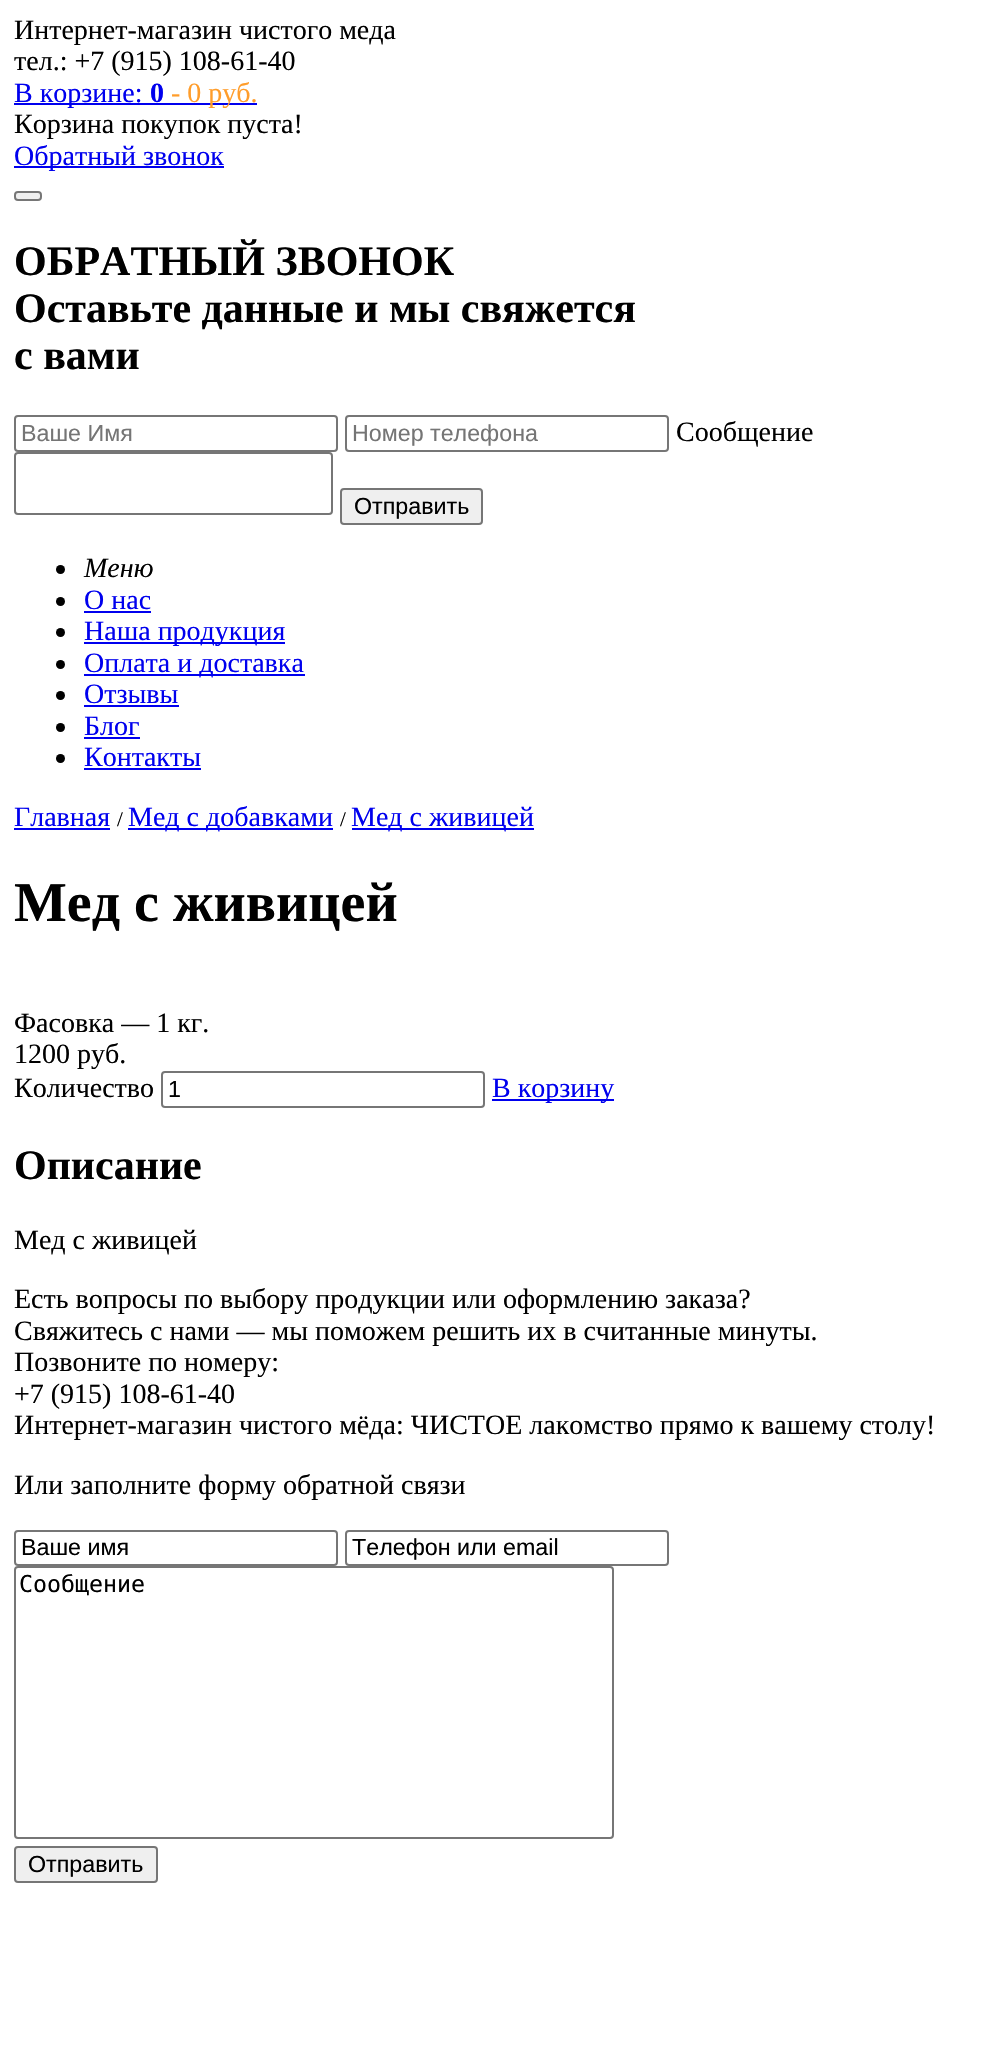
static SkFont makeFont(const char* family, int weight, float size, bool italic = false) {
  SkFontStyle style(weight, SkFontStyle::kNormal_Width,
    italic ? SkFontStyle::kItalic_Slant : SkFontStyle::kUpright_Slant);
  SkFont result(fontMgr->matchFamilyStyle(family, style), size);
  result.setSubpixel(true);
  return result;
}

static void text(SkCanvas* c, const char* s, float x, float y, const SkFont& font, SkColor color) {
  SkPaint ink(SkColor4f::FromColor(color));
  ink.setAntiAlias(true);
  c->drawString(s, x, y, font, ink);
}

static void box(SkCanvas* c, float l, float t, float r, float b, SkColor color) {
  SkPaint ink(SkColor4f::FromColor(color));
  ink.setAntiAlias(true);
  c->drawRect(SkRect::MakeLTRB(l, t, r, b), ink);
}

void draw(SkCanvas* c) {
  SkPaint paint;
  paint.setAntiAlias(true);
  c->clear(0xffffffff);
  SkFont face1 = makeFont("Liberation Serif", 400, 28);
  text(c, "Интернет-магазин чистого меда", 14, 39, face1, 0xff000000);
  text(c, "тел.: +7 (915) 108-61-40", 14, 70, face1, 0xff000000);
  box(c, 14, 103, 257, 105, 0xff0000ee);
  text(c, "В корзине:", 14, 102, face1, 0xff0000ee);
  SkFont face2 = makeFont("Liberation Serif", 700, 28);
  text(c, "0", 150, 102, face2, 0xff0000ee);
  text(c, "- 0 руб.", 171, 102, face1, 0xffff9d2b);
  text(c, "Корзина покупок пуста!", 14, 133, face1, 0xff000000);
  box(c, 14, 166, 224, 168, 0xff0000ee);
  text(c, "Обратный звонок", 14, 165, face1, 0xff0000ee);
  paint.setColor(0xffefefef);
  c->drawRoundRect(SkRect::MakeLTRB(15, 192, 41, 200), 3, 3, paint);
  paint.setStyle(SkPaint::kStroke_Style);
  paint.setStrokeWidth(2);
  paint.setColor(0xff767676);
  c->drawRoundRect(SkRect::MakeLTRB(15, 192, 41, 200), 3, 3, paint);
  SkFont face3 = makeFont("Liberation Serif", 700, 42);
  text(c, "ОБРАТНЫЙ ЗВОНОК", 14, 275, face3, 0xff000000);
  text(c, "Оставьте данные и мы свяжется", 14, 322, face3, 0xff000000);
  text(c, "с вами", 14, 369, face3, 0xff000000);
  c->drawRoundRect(SkRect::MakeLTRB(15, 416, 337, 451), 3, 3, paint);
  SkFont face4 = makeFont("Liberation Sans", 400, 23.25f);
  text(c, "Ваше Имя", 21, 441, face4, 0xff757575);
  c->drawRoundRect(SkRect::MakeLTRB(346, 416, 668, 451), 3, 3, paint);
  text(c, "Номер телефона", 352, 441, face4, 0xff757575);
  text(c, "Сообщение", 676, 441, face1, 0xff000000);
  c->drawRoundRect(SkRect::MakeLTRB(15, 453, 332, 514), 3, 3, paint);
  paint.setStyle(SkPaint::kFill_Style);
  paint.setColor(0xffefefef);
  c->drawRoundRect(SkRect::MakeLTRB(341, 489, 482, 524), 3, 3, paint);
  paint.setStyle(SkPaint::kStroke_Style);
  paint.setColor(0xff767676);
  c->drawRoundRect(SkRect::MakeLTRB(341, 489, 482, 524), 3, 3, paint);
  text(c, "Отправить", 354, 514, face4, 0xff000000);
  paint.setStyle(SkPaint::kFill_Style);
  paint.setColor(0xff000000);
  c->drawCircle(60.5f, 569.5f, 4.5f, paint);
  SkFont face5 = makeFont("Liberation Serif", 400, 28, true);
  text(c, "Меню", 84, 577, face5, 0xff000000);
  c->drawCircle(60.5f, 601.5f, 4.5f, paint);
  text(c, "О нас", 84, 609, face1, 0xff0000ee);
  box(c, 84, 611, 151, 613, 0xff0000ee);
  c->drawCircle(60.5f, 632.5f, 4.5f, paint);
  box(c, 84, 642, 285, 644, 0xff0000ee);
  text(c, "Наша продукция", 84, 640, face1, 0xff0000ee);
  c->drawCircle(60.5f, 664.5f, 4.5f, paint);
  box(c, 84, 674, 305, 676, 0xff0000ee);
  text(c, "Оплата и доставка", 84, 672, face1, 0xff0000ee);
  c->drawCircle(60.5f, 695.5f, 4.5f, paint);
  text(c, "Отзывы", 84, 703, face1, 0xff0000ee);
  box(c, 84, 705, 179, 707, 0xff0000ee);
  c->drawCircle(60.5f, 727.5f, 4.5f, paint);
  text(c, "Блог", 84, 735, face1, 0xff0000ee);
  box(c, 84, 737, 140, 739, 0xff0000ee);
  c->drawCircle(60.5f, 758.5f, 4.5f, paint);
  text(c, "Контакты", 84, 766, face1, 0xff0000ee);
  box(c, 84, 768, 201, 770, 0xff0000ee);
  text(c, "Главная", 14, 826, face1, 0xff0000ee);
  box(c, 14, 828, 110, 830, 0xff0000ee);
  SkFont face6 = makeFont("Liberation Serif", 400, 21);
  text(c, "/", 117, 826, face6, 0xff000000);
  box(c, 128, 828, 333, 830, 0xff0000ee);
  text(c, "Мед с добавками", 128, 826, face1, 0xff0000ee);
  text(c, "/", 340, 826, face6, 0xff000000);
  box(c, 352, 828, 534, 830, 0xff0000ee);
  text(c, "Мед с живицей", 351, 826, face1, 0xff0000ee);
  SkFont face7 = makeFont("Liberation Serif", 700, 56);
  text(c, "Мед с живицей", 14, 921, face7, 0xff000000);
  text(c, "Фасовка — 1 кг.", 14, 1032, face1, 0xff000000);
  text(c, "1200 руб.", 14, 1063, face1, 0xff000000);
  text(c, "Количество", 14, 1097, face1, 0xff000000);
  paint.setStyle(SkPaint::kStroke_Style);
  paint.setColor(0xff767676);
  c->drawRoundRect(SkRect::MakeLTRB(162, 1072, 484, 1107), 3, 3, paint);
  text(c, "1", 168, 1097, face4, 0xff000000);
  box(c, 492, 1099, 614, 1101, 0xff0000ee);
  text(c, "В корзину", 492, 1097, face1, 0xff0000ee);
  text(c, "Описание", 14, 1179, face3, 0xff000000);
  text(c, "Мед с живицей", 14, 1249, face1, 0xff000000);
  text(c, "Есть вопросы по выбору продукции или оформлению заказа?", 14, 1308, face1, 0xff000000);
  text(c, "Свяжитесь с нами — мы поможем решить их в считанные минуты.", 14, 1340, face1, 0xff000000);
  text(c, "Позвоните по номеру:", 14, 1371, face1, 0xff000000);
  text(c, "+7 (915) 108-61-40", 14, 1403, face1, 0xff000000);
  text(c, "Интернет-магазин чистого мёда: ЧИСТОЕ лакомство прямо к вашему столу!", 14, 1434, face1, 0xff000000);
  text(c, "Или заполните форму обратной связи", 14, 1494, face1, 0xff000000);
  c->drawRoundRect(SkRect::MakeLTRB(15, 1531, 337, 1565), 3, 3, paint);
  text(c, "Ваше имя", 21, 1555, face4, 0xff000000);
  c->drawRoundRect(SkRect::MakeLTRB(346, 1531, 668, 1565), 3, 3, paint);
  text(c, "Телефон или email", 352, 1555, face4, 0xff000000);
  c->drawRoundRect(SkRect::MakeLTRB(15, 1567, 613, 1838), 3, 3, paint);
  SkFont face8 = makeFont("DejaVu Sans Mono", 400, 23.25f);
  text(c, "Сообщение", 19, 1592, face8, 0xff000000);
  paint.setStyle(SkPaint::kFill_Style);
  paint.setColor(0xffefefef);
  c->drawRoundRect(SkRect::MakeLTRB(15, 1847, 157, 1882), 3, 3, paint);
  paint.setStyle(SkPaint::kStroke_Style);
  paint.setColor(0xff767676);
  c->drawRoundRect(SkRect::MakeLTRB(15, 1847, 157, 1882), 3, 3, paint);
  text(c, "Отправить", 28, 1872, face4, 0xff000000);
}
